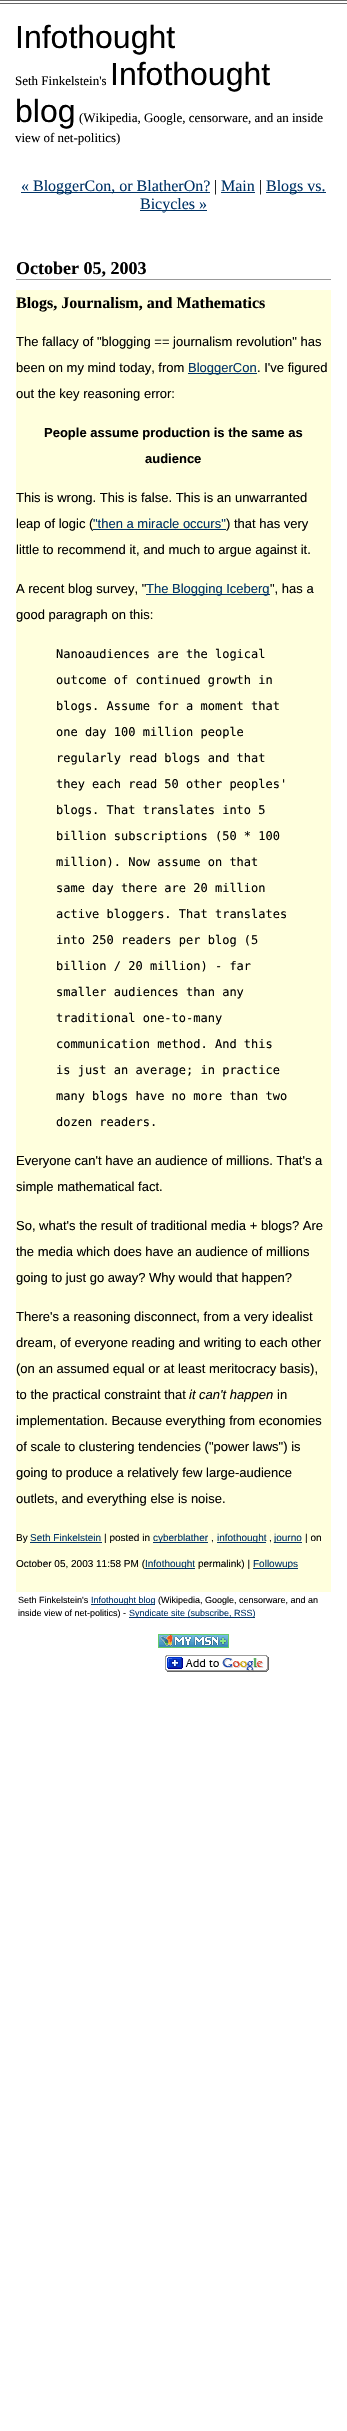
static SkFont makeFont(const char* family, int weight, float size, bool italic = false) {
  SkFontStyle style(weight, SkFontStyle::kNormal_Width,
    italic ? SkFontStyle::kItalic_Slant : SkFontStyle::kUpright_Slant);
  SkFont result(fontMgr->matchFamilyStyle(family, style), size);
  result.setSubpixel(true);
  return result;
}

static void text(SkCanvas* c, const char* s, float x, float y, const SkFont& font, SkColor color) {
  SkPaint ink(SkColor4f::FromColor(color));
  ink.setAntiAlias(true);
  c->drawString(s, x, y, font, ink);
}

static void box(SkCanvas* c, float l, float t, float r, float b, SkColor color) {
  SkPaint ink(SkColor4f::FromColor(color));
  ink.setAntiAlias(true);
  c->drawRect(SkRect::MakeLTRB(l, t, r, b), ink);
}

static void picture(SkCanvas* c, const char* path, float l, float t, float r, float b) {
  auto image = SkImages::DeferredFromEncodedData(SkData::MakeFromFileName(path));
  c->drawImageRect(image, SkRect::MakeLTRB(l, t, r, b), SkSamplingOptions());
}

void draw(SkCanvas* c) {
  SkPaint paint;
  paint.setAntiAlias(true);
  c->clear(0xffffffff);
  box(c, 0, 0, 347, 1, 0xff666666);
  box(c, 0, 3, 347, 4, 0xff666666);
  SkFont face1 = makeFont("Liberation Sans", 400, 32);
  text(c, "Infothought", 15, 48, face1, 0xff000000);
  SkFont face2 = makeFont("Liberation Serif", 400, 13);
  text(c, "Seth Finkelstein's", 15, 85, face2, 0xff000000);
  text(c, "Infothought", 110, 85, face1, 0xff000000);
  text(c, "blog", 15, 122, face1, 0xff000000);
  text(c, "(Wikipedia, Google, censorware, and an inside", 79, 122, face2, 0xff000000);
  text(c, "view of net-politics)", 15, 142, face2, 0xff000000);
  box(c, 21, 192, 210, 193, 0xff003366);
  SkFont face3 = makeFont("Liberation Serif", 400, 16);
  text(c, "« BloggerCon, or BlatherOn?", 21, 191, face3, 0xff003366);
  text(c, "|", 214, 191, face3, 0xff000000);
  text(c, "Main", 221, 191, face3, 0xff003366);
  box(c, 221, 192, 255, 193, 0xff003366);
  text(c, "|", 259, 191, face3, 0xff000000);
  box(c, 266, 192, 326, 193, 0xff003366);
  text(c, "Blogs vs.", 266, 191, face3, 0xff003366);
  box(c, 140, 210, 207, 211, 0xff003366);
  text(c, "Bicycles »", 140, 209, face3, 0xff003366);
  box(c, 16, 279, 331, 280, 0xff999999);
  SkFont face4 = makeFont("Liberation Serif", 700, 18);
  text(c, "October 05, 2003", 16, 274, face4, 0xff000000);
  box(c, 16, 290, 331, 1592, 0xffffffdd);
  SkFont face5 = makeFont("Liberation Serif", 700, 16);
  text(c, "Blogs, Journalism, and Mathematics", 16, 308, face5, 0xff000000);
  SkFont face6 = makeFont("Liberation Sans", 400, 13);
  text(c, "The fallacy of \"blogging == journalism revolution\" has", 16, 346, face6, 0xff000000);
  text(c, "been on my mind today, from", 16, 372, face6, 0xff000000);
  box(c, 188, 373, 257, 374, 0xff003366);
  text(c, "BloggerCon", 188, 372, face6, 0xff003366);
  text(c, ". I've figured", 257, 372, face6, 0xff000000);
  text(c, "out the key reasoning error:", 16, 398, face6, 0xff000000);
  SkFont face7 = makeFont("Liberation Sans", 700, 13);
  text(c, "People assume production is the same as", 44, 437, face7, 0xff000000);
  text(c, "audience", 145, 463, face7, 0xff000000);
  text(c, "This is wrong. This is false. This is an unwarranted", 16, 502, face6, 0xff000000);
  text(c, "leap of logic (", 16, 528, face6, 0xff000000);
  text(c, "\"then a miracle occurs\"", 93, 528, face6, 0xff003366);
  box(c, 93, 529, 226, 530, 0xff003366);
  text(c, ") that has very", 226, 528, face6, 0xff000000);
  text(c, "little to recommend it, and much to argue against it.", 16, 554, face6, 0xff000000);
  text(c, "A recent blog survey, \"", 16, 593, face6, 0xff000000);
  box(c, 146, 594, 270, 595, 0xff003366);
  text(c, "The Blogging Iceberg", 146, 593, face6, 0xff003366);
  text(c, "\", has a", 270, 593, face6, 0xff000000);
  text(c, "good paragraph on this:", 16, 619, face6, 0xff000000);
  SkFont face8 = makeFont("DejaVu Sans Mono", 400, 12);
  text(c, "Nanoaudiences are the logical", 56, 658, face8, 0xff000000);
  text(c, "outcome of continued growth in", 56, 684, face8, 0xff000000);
  text(c, "blogs. Assume for a moment that", 56, 710, face8, 0xff000000);
  text(c, "one day 100 million people", 56, 736, face8, 0xff000000);
  text(c, "regularly read blogs and that", 56, 762, face8, 0xff000000);
  text(c, "they each read 50 other peoples'", 56, 788, face8, 0xff000000);
  text(c, "blogs. That translates into 5", 56, 814, face8, 0xff000000);
  text(c, "billion subscriptions (50 * 100", 56, 840, face8, 0xff000000);
  text(c, "million). Now assume on that", 56, 866, face8, 0xff000000);
  text(c, "same day there are 20 million", 56, 892, face8, 0xff000000);
  text(c, "active bloggers. That translates", 56, 918, face8, 0xff000000);
  text(c, "into 250 readers per blog (5", 56, 944, face8, 0xff000000);
  text(c, "billion / 20 million) - far", 56, 970, face8, 0xff000000);
  text(c, "smaller audiences than any", 56, 996, face8, 0xff000000);
  text(c, "traditional one-to-many", 56, 1022, face8, 0xff000000);
  text(c, "communication method. And this", 56, 1048, face8, 0xff000000);
  text(c, "is just an average; in practice", 56, 1074, face8, 0xff000000);
  text(c, "many blogs have no more than two", 56, 1100, face8, 0xff000000);
  text(c, "dozen readers.", 56, 1126, face8, 0xff000000);
  text(c, "Everyone can't have an audience of millions. That's a", 16, 1165, face6, 0xff000000);
  text(c, "simple mathematical fact.", 16, 1191, face6, 0xff000000);
  text(c, "So, what's the result of traditional media + blogs? Are", 16, 1230, face6, 0xff000000);
  text(c, "the media which does have an audience of millions", 16, 1256, face6, 0xff000000);
  text(c, "going to just go away? Why would that happen?", 16, 1282, face6, 0xff000000);
  text(c, "There's a reasoning disconnect, from a very idealist", 16, 1321, face6, 0xff000000);
  text(c, "dream, of everyone reading and writing to each other", 16, 1347, face6, 0xff000000);
  text(c, "(on an assumed equal or at least meritocracy basis),", 16, 1373, face6, 0xff000000);
  text(c, "to the practical constraint that", 16, 1399, face6, 0xff000000);
  SkFont face9 = makeFont("Liberation Sans", 400, 13, true);
  text(c, "it can't happen", 189, 1399, face9, 0xff000000);
  text(c, "in", 277, 1399, face6, 0xff000000);
  text(c, "implementation. Because everything from economies", 16, 1425, face6, 0xff000000);
  text(c, "of scale to clustering tendencies (\"power laws\") is", 16, 1451, face6, 0xff000000);
  text(c, "going to produce a relatively few large-audience", 16, 1477, face6, 0xff000000);
  text(c, "outlets, and everything else is noise.", 16, 1503, face6, 0xff000000);
  SkFont face10 = makeFont("Liberation Sans", 400, 10);
  text(c, "By", 16, 1541, face10, 0xff000000);
  box(c, 30, 1542, 102, 1543, 0xff003366);
  text(c, "Seth Finkelstein", 30, 1541, face10, 0xff003366);
  text(c, "| posted in", 104, 1541, face10, 0xff000000);
  box(c, 153, 1542, 208, 1543, 0xff003366);
  text(c, "cyberblather", 153, 1541, face10, 0xff003366);
  text(c, ",", 211, 1541, face10, 0xff000000);
  box(c, 217, 1542, 266, 1543, 0xff003366);
  text(c, "infothought", 217, 1541, face10, 0xff003366);
  text(c, ",", 269, 1541, face10, 0xff000000);
  box(c, 274, 1542, 302, 1543, 0xff003366);
  text(c, "journo", 274, 1541, face10, 0xff003366);
  text(c, "| on", 305, 1541, face10, 0xff000000);
  text(c, "October 05, 2003 11:58 PM (", 16, 1567, face10, 0xff000000);
  box(c, 145, 1568, 195, 1569, 0xff003366);
  text(c, "Infothought", 145, 1567, face10, 0xff003366);
  text(c, "permalink) |", 198, 1567, face10, 0xff000000);
  box(c, 253, 1568, 298, 1569, 0xff003366);
  text(c, "Followups", 253, 1567, face10, 0xff003366);
  SkFont face11 = makeFont("Liberation Sans", 400, 9);
  text(c, "Seth Finkelstein's", 18, 1603, face11, 0xff000000);
  box(c, 91, 1604, 155, 1605, 0xff003366);
  text(c, "Infothought blog", 91, 1603, face11, 0xff003366);
  text(c, "(Wikipedia, Google, censorware, and an", 158, 1603, face11, 0xff000000);
  text(c, "inside view of net-politics) -", 18, 1616, face11, 0xff000000);
  box(c, 129, 1617, 255, 1618, 0xff003366);
  text(c, "Syndicate site (subscribe, RSS)", 129, 1616, face11, 0xff003366);
  picture(c, "img_01.png", 158, 1634, 229, 1648);
  picture(c, "img_02.png", 165, 1655, 269, 1672);
}
